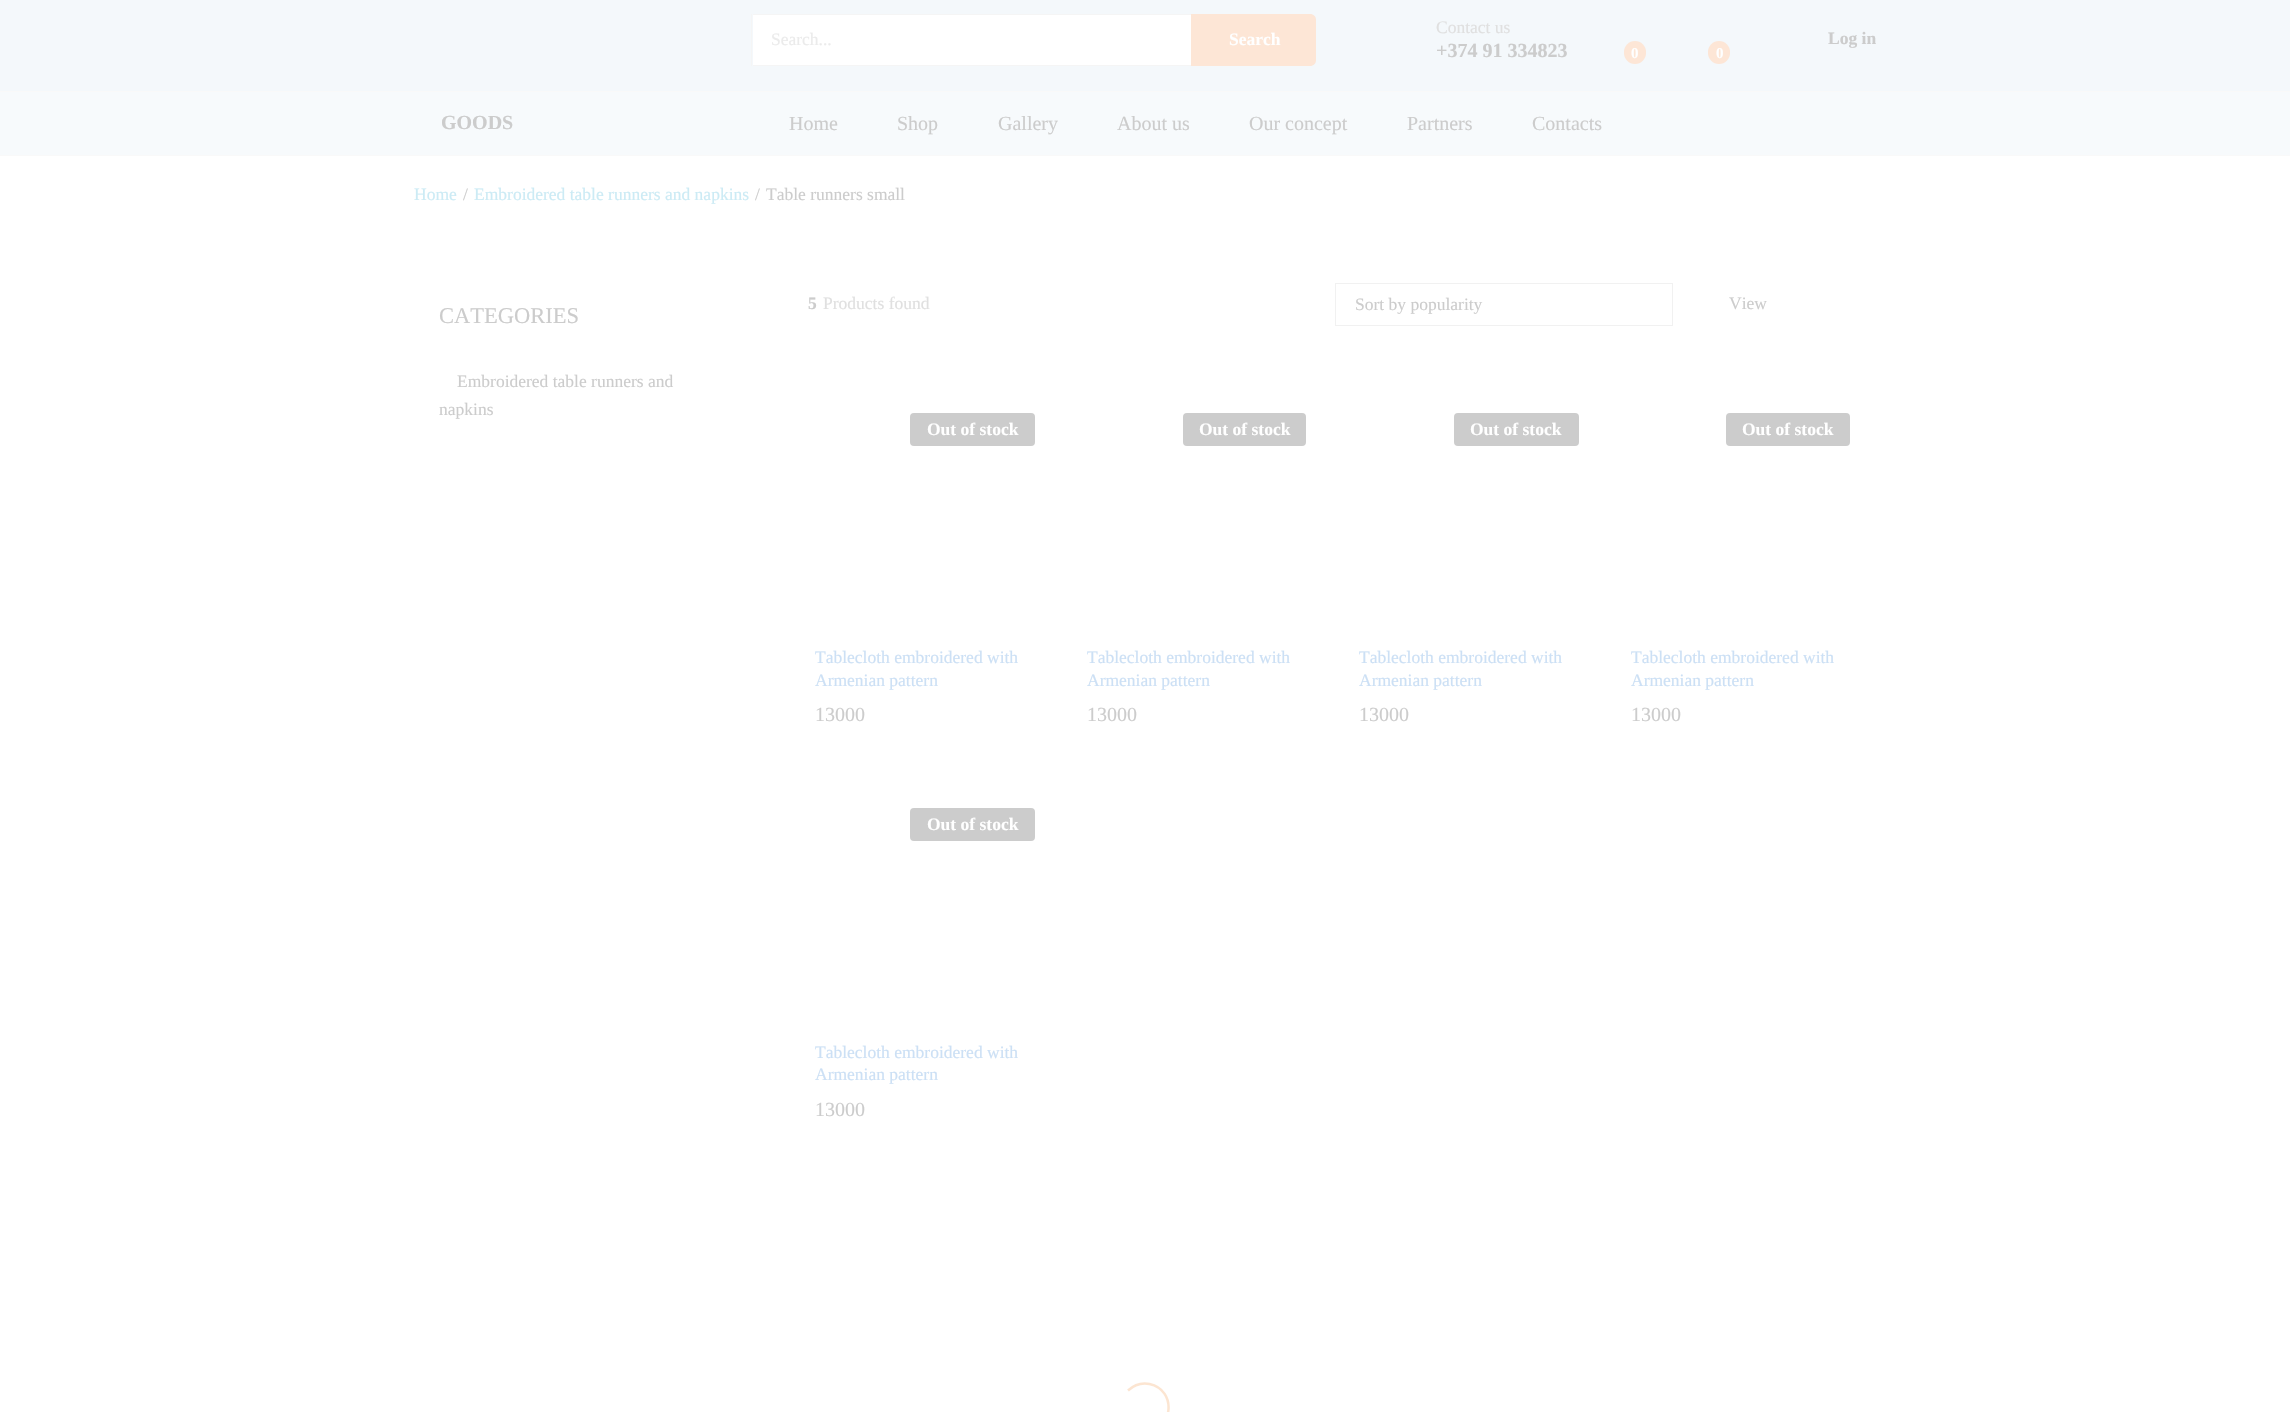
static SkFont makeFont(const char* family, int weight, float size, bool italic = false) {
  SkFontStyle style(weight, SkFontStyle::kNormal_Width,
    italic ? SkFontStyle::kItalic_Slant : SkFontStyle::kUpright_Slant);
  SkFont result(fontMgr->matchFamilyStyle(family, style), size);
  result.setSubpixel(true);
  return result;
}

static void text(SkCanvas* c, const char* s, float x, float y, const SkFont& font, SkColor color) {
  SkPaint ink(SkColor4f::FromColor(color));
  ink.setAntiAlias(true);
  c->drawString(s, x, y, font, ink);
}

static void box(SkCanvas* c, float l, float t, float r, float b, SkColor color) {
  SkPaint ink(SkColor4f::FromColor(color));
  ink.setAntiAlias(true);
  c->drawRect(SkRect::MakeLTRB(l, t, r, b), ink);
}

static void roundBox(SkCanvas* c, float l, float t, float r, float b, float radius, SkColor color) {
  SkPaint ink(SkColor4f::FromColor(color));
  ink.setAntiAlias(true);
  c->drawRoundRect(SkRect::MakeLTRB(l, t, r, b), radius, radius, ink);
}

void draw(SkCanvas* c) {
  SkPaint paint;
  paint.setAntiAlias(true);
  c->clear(0xffffffff);
  box(c, 0, 0, 2290, 91, 0xfff4f8fb);
  box(c, 751, 14, 752, 66, 0xfff5f5f5);
  box(c, 753, 15, 1191, 65, 0xffffffff);
  box(c, 753, 14, 1191, 15, 0xfff5f5f5);
  box(c, 753, 65, 1191, 66, 0xfff5f5f5);
  SkFont face1 = makeFont("Liberation Serif", 400, 17.5f);
  text(c, "Search...", 771, 45, face1, 0xffebebeb);
  paint.setColor(0xfffde6d6);
  c->drawPath(SkPathBuilder().moveTo(1191, 14).lineTo(1310, 14).cubicTo(1313.5f, 14, 1316, 16.5f, 1316, 20).lineTo(1316, 60).cubicTo(1316, 63.5f, 1313.5f, 66, 1310, 66).lineTo(1191, 66).close().detach(), paint);
  SkFont face2 = makeFont("Liberation Serif", 700, 17.5f);
  text(c, "Search", 1229, 45, face2, 0xffffffff);
  text(c, "Contact us", 1436, 33, face1, 0xffe0e0e0);
  SkFont face3 = makeFont("Liberation Serif", 700, 20);
  text(c, "+374 91 334823", 1436, 57, face3, 0xffcccccc);
  text(c, "Log in", 1828, 44, face2, 0xffcccccc);
  roundBox(c, 1624, 41, 1646, 64, 11, 0xfffde6d6);
  SkFont face4 = makeFont("Liberation Serif", 700, 15);
  text(c, "0", 1631, 58, face4, 0xffffffff);
  roundBox(c, 1708, 41, 1730, 64, 11, 0xfffde6d6);
  text(c, "0", 1716, 58, face4, 0xffffffff);
  box(c, 0, 92, 2290, 155, 0xfff7fafc);
  box(c, 0, 91, 2290, 92, 0xfff9f9f9);
  box(c, 0, 155, 2290, 156, 0xfff9f9f9);
  text(c, "GOODS", 441, 129, face3, 0xffcccccc);
  SkFont face5 = makeFont("Liberation Serif", 400, 20);
  text(c, "Home", 789, 130, face5, 0xffcccccc);
  text(c, "Shop", 897, 130, face5, 0xffcccccc);
  text(c, "Gallery", 998, 130, face5, 0xffcccccc);
  text(c, "About us", 1117, 130, face5, 0xffcccccc);
  text(c, "Our concept", 1249, 130, face5, 0xffcccccc);
  text(c, "Partners", 1407, 130, face5, 0xffcccccc);
  text(c, "Contacts", 1532, 130, face5, 0xffcccccc);
  text(c, "Home", 414, 200, face1, 0xffccebf5);
  text(c, "/", 463, 200, face1, 0xffcccccc);
  text(c, "Embroidered table runners and napkins", 474, 200, face1, 0xffccebf5);
  text(c, "/", 755, 200, face1, 0xffcccccc);
  text(c, "Table runners small", 766, 200, face1, 0xffcccccc);
  SkFont face6 = makeFont("Liberation Serif", 400, 22.5f);
  text(c, "CATEGORIES", 439, 323, face6, 0xffcccccc);
  text(c, "Embroidered table runners and", 457, 387, face1, 0xffcccccc);
  text(c, "napkins", 439, 415, face1, 0xffcccccc);
  text(c, "5", 808, 309, face2, 0xffcccccc);
  text(c, "Products found", 823, 309, face1, 0xffe0e0e0);
  paint.setStyle(SkPaint::kStroke_Style);
  paint.setStrokeWidth(1);
  paint.setColor(0xfff1f1f1);
  c->drawRect(SkRect::MakeLTRB(1335.5f, 283.5f, 1672.5f, 325.5f), paint);
  text(c, "Sort by popularity", 1355, 310, face1, 0xffcccccc);
  text(c, "View", 1729, 309, face1, 0xffcccccc);
  roundBox(c, 910, 413, 1035, 446, 4, 0xffcccccc);
  text(c, "Out of stock", 927, 435, face2, 0xffffffff);
  text(c, "Тablecloth еmbroidered with", 815, 663, face1, 0xffcce0f5);
  text(c, "Armenian pattern", 815, 686, face1, 0xffcce0f5);
  text(c, "13000", 815, 721, face5, 0xffcccccc);
  roundBox(c, 1183, 413, 1306, 446, 4, 0xffcccccc);
  text(c, "Out of stock", 1199, 435, face2, 0xffffffff);
  text(c, "Тablecloth еmbroidered with", 1087, 663, face1, 0xffcce0f5);
  text(c, "Armenian pattern", 1087, 686, face1, 0xffcce0f5);
  text(c, "13000", 1087, 721, face5, 0xffcccccc);
  roundBox(c, 1454, 413, 1579, 446, 4, 0xffcccccc);
  text(c, "Out of stock", 1470, 435, face2, 0xffffffff);
  text(c, "Тablecloth еmbroidered with", 1359, 663, face1, 0xffcce0f5);
  text(c, "Armenian pattern", 1359, 686, face1, 0xffcce0f5);
  text(c, "13000", 1359, 721, face5, 0xffcccccc);
  roundBox(c, 1726, 413, 1850, 446, 4, 0xffcccccc);
  text(c, "Out of stock", 1742, 435, face2, 0xffffffff);
  text(c, "Тablecloth еmbroidered with", 1631, 663, face1, 0xffcce0f5);
  text(c, "Armenian pattern", 1631, 686, face1, 0xffcce0f5);
  text(c, "13000", 1631, 721, face5, 0xffcccccc);
  roundBox(c, 910, 808, 1035, 841, 4, 0xffcccccc);
  text(c, "Out of stock", 927, 830, face2, 0xffffffff);
  text(c, "Тablecloth еmbroidered with", 815, 1058, face1, 0xffcce0f5);
  text(c, "Armenian pattern", 815, 1080, face1, 0xffcce0f5);
  text(c, "13000", 815, 1116, face5, 0xffcccccc);
  paint.setStrokeWidth(2.5f);
  paint.setColor(0xfffce5d1);
  c->drawPath(SkPathBuilder().moveTo(1128, 1390.5f).cubicTo(1134, 1385, 1142, 1382.5f, 1149.5f, 1384).cubicTo(1177.5f, 1390, 1173.5f, 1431, 1145, 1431).cubicTo(1138.5f, 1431, 1132.5f, 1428.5f, 1128, 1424.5f).detach(), paint);
}
